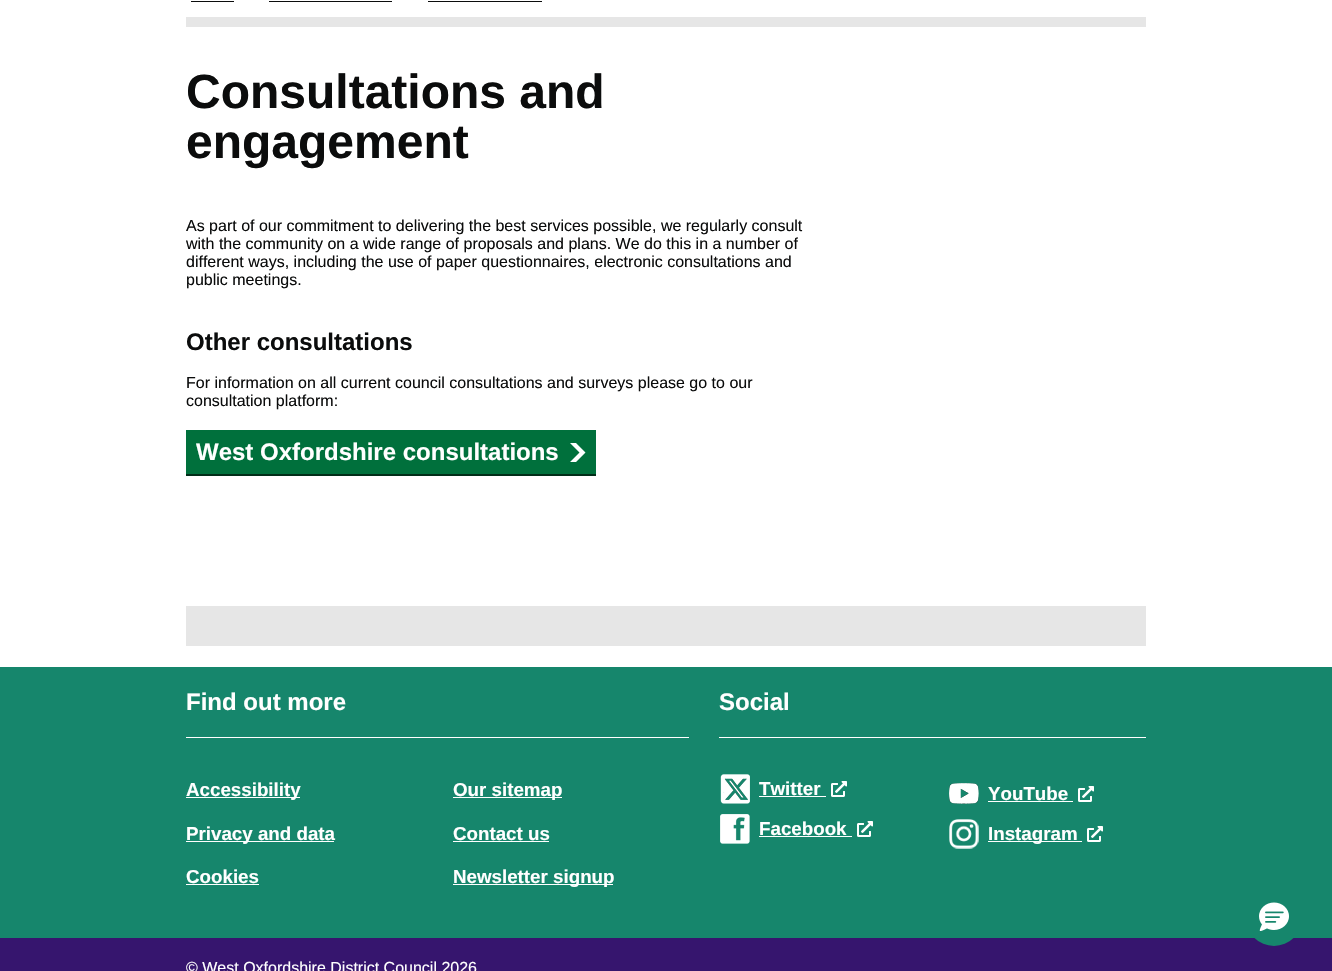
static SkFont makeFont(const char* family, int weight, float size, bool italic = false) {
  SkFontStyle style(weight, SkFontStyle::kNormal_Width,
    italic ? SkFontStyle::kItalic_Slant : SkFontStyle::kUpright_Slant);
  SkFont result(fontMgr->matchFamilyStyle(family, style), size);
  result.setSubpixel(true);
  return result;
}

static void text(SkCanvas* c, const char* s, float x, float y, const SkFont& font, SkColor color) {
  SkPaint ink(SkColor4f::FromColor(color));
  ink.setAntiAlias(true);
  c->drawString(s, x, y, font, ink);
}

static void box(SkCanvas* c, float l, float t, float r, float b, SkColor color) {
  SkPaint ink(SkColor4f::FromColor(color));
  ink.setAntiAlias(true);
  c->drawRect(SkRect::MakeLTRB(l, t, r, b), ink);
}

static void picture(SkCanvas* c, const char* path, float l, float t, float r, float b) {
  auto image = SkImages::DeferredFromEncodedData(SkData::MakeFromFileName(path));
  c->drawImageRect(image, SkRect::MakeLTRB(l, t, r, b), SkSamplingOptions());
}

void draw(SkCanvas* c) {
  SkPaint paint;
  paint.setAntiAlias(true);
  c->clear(0xffffffff);
  box(c, 186, 17, 1146, 27, 0xffe6e6e6);
  box(c, 191, 1, 234, 2, 0xff0b0c0c);
  box(c, 269, 1, 392, 2, 0xff0b0c0c);
  box(c, 428, 1, 542, 2, 0xff0b0c0c);
  SkFont face1 = makeFont("Liberation Sans", 700, 48);
  text(c, "Consultations and", 186, 108, face1, 0xff0b0c0c);
  text(c, "engagement", 186, 158, face1, 0xff0b0c0c);
  SkFont face2 = makeFont("Liberation Sans", 400, 16);
  text(c, "As part of our commitment to delivering the best services possible, we regularly consult", 186, 231, face2, 0xff0b0c0c);
  text(c, "with the community on a wide range of proposals and plans. We do this in a number of", 186, 249, face2, 0xff0b0c0c);
  text(c, "different ways, including the use of paper questionnaires, electronic consultations and", 186, 267, face2, 0xff0b0c0c);
  text(c, "public meetings.", 186, 285, face2, 0xff0b0c0c);
  SkFont face3 = makeFont("Liberation Sans", 700, 24);
  text(c, "Other consultations", 186, 350, face3, 0xff0b0c0c);
  text(c, "For information on all current council consultations and surveys please go to our", 186, 388, face2, 0xff0b0c0c);
  text(c, "consultation platform:", 186, 406, face2, 0xff0b0c0c);
  box(c, 186, 474, 596, 476, 0xff002d18);
  box(c, 186, 430, 596, 474, 0xff00703c);
  text(c, "West Oxfordshire consultations", 196, 460, face3, 0xffffffff);
  paint.setColor(0xffffffff);
  c->drawPath(SkPathBuilder().moveTo(570, 443).lineTo(576, 443).lineTo(585.5f, 452.5f).lineTo(576, 462).lineTo(570, 462).lineTo(579.5f, 452.5f).close().detach(), paint);
  box(c, 186, 606, 1146, 646, 0xffe6e6e6);
  box(c, 0, 667, 1332, 938, 0xff16866c);
  box(c, 186, 737, 689, 738, 0xffffffff);
  text(c, "Find out more", 186, 710, face3, 0xffffffff);
  box(c, 186, 797, 300, 798, 0xffffffff);
  SkFont face4 = makeFont("Liberation Sans", 700, 18.75f);
  text(c, "Accessibility", 186, 796, face4, 0xffffffff);
  box(c, 453, 797, 562, 798, 0xffffffff);
  text(c, "Our sitemap", 453, 796, face4, 0xffffffff);
  box(c, 186, 841, 334, 842, 0xffffffff);
  text(c, "Privacy and data", 186, 840, face4, 0xffffffff);
  text(c, "Contact us", 453, 840, face4, 0xffffffff);
  box(c, 453, 841, 549, 842, 0xffffffff);
  text(c, "Cookies", 186, 883, face4, 0xffffffff);
  box(c, 186, 884, 259, 885, 0xffffffff);
  box(c, 453, 884, 613, 885, 0xffffffff);
  text(c, "Newsletter signup", 453, 883, face4, 0xffffffff);
  box(c, 719, 737, 1146, 738, 0xffffffff);
  text(c, "Social", 719, 710, face3, 0xffffffff);
  picture(c, "img_01.png", 720, 774, 750, 804);
  text(c, "Twitter", 759, 795, face4, 0xffffffff);
  box(c, 759, 796, 826, 797, 0xffffffff);
  picture(c, "img_02.png", 831, 781, 847, 797);
  picture(c, "img_03.png", 949, 783, 979, 804);
  text(c, "YouTube", 988, 800, face4, 0xffffffff);
  box(c, 988, 801, 1073, 802, 0xffffffff);
  picture(c, "img_02.png", 1078, 786, 1094, 802);
  picture(c, "img_04.png", 720, 814, 750, 844);
  text(c, "Facebook", 759, 835, face4, 0xffffffff);
  box(c, 759, 836, 852, 837, 0xffffffff);
  picture(c, "img_02.png", 857, 821, 873, 837);
  picture(c, "img_05.png", 949, 819, 979, 849);
  box(c, 988, 841, 1082, 842, 0xffffffff);
  text(c, "Instagram", 988, 840, face4, 0xffffffff);
  picture(c, "img_02.png", 1087, 826, 1103, 842);
  box(c, 0, 938, 1332, 971, 0xff36156e);
  paint.setColor(0xff16866c);
  c->drawCircle(1274, 918, 28, paint);
  picture(c, "img_06.png", 1259, 902, 1289, 931);
  text(c, "© West Oxfordshire District Council 2026", 186, 973, face2, 0xffffffff);
}
